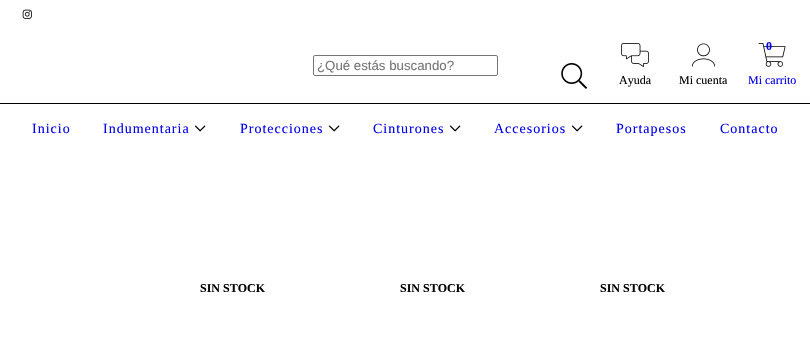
static SkFont makeFont(const char* family, int weight, float size, bool italic = false) {
  SkFontStyle style(weight, SkFontStyle::kNormal_Width,
    italic ? SkFontStyle::kItalic_Slant : SkFontStyle::kUpright_Slant);
  SkFont result(fontMgr->matchFamilyStyle(family, style), size);
  result.setSubpixel(true);
  return result;
}

static void text(SkCanvas* c, const char* s, float x, float y, const SkFont& font, SkColor color) {
  SkPaint ink(SkColor4f::FromColor(color));
  ink.setAntiAlias(true);
  c->drawString(s, x, y, font, ink);
}

static void spacedText(SkCanvas* c, const char* s, float x, float y, const SkFont& font, const SkPaint& ink, float letter, float word) {
  std::vector<SkGlyphID> glyphs(font.countText(s, strlen(s), SkTextEncoding::kUTF8));
  std::vector<float> xs(glyphs.size());
  font.textToGlyphs(s, strlen(s), SkTextEncoding::kUTF8, glyphs);
  font.getXPos(glyphs, xs, x);
  float extra = 0;
  for (size_t i = 0; i < glyphs.size(); i++) {
    xs[i] += extra;
    extra += letter + word * (glyphs[i] == font.unicharToGlyph(' '));
  }
  c->drawTextBlob(SkTextBlob::MakeFromPosHGlyphs(glyphs, xs, y, font), 0, 0, ink);
}

static void box(SkCanvas* c, float l, float t, float r, float b, SkColor color) {
  SkPaint ink(SkColor4f::FromColor(color));
  ink.setAntiAlias(true);
  c->drawRect(SkRect::MakeLTRB(l, t, r, b), ink);
}

static void picture(SkCanvas* c, const char* path, float l, float t, float r, float b) {
  auto image = SkImages::DeferredFromEncodedData(SkData::MakeFromFileName(path));
  c->drawImageRect(image, SkRect::MakeLTRB(l, t, r, b), SkSamplingOptions());
}

void draw(SkCanvas* c) {
  SkPaint paint;
  paint.setAntiAlias(true);
  c->clear(0xffffffff);
  picture(c, "img_01.png", 22, 9, 32, 19);
  paint.setStyle(SkPaint::kStroke_Style);
  paint.setStrokeWidth(1);
  paint.setColor(0xff767676);
  c->drawRoundRect(SkRect::MakeLTRB(313.5f, 55.5f, 497.5f, 75.5f), 1.5f, 1.5f, paint);
  SkFont face1 = makeFont("Liberation Sans", 400, 13.25f);
  text(c, "¿Qué estás buscando?", 317, 70, face1, 0xff757575);
  picture(c, "img_02.png", 561, 63, 587, 89);
  picture(c, "img_03.png", 621, 43, 649, 67);
  SkFont face2 = makeFont("Liberation Serif", 400, 12);
  text(c, "Ayuda", 619, 84, face2, 0xff000000);
  picture(c, "img_04.png", 691, 43, 716, 67);
  text(c, "Mi cuenta", 679, 84, face2, 0xff000000);
  picture(c, "img_05.png", 758, 43, 786, 67);
  SkFont face3 = makeFont("Liberation Serif", 700, 12);
  text(c, "0", 766, 50, face3, 0xff0000ee);
  text(c, "Mi carrito", 748, 84, face2, 0xff0000ee);
  box(c, 0, 103, 810, 104, 0xff000000);
  SkFont face4 = makeFont("Liberation Serif", 400, 14);
  paint.setStyle(SkPaint::kFill_Style);
  paint.setColor(0xff0000ee);
  spacedText(c, "Inicio", 32, 133, face4, paint, 1, 0);
  spacedText(c, "Indumentaria", 103, 133, face4, paint, 1, 0);
  picture(c, "img_06.png", 194, 125, 206, 132);
  spacedText(c, "Protecciones", 240, 133, face4, paint, 1, 0);
  picture(c, "img_06.png", 328, 125, 340, 132);
  spacedText(c, "Cinturones", 373, 133, face4, paint, 1, 0);
  picture(c, "img_06.png", 449, 125, 461, 132);
  spacedText(c, "Accesorios", 494, 133, face4, paint, 1, 0);
  picture(c, "img_06.png", 571, 125, 583, 132);
  spacedText(c, "Portapesos", 616, 133, face4, paint, 1, 0);
  spacedText(c, "Contacto", 720, 133, face4, paint, 1, 0);
  text(c, "SIN STOCK", 200, 292, face3, 0xff000000);
  text(c, "SIN STOCK", 400, 292, face3, 0xff000000);
  text(c, "SIN STOCK", 600, 292, face3, 0xff000000);
}
